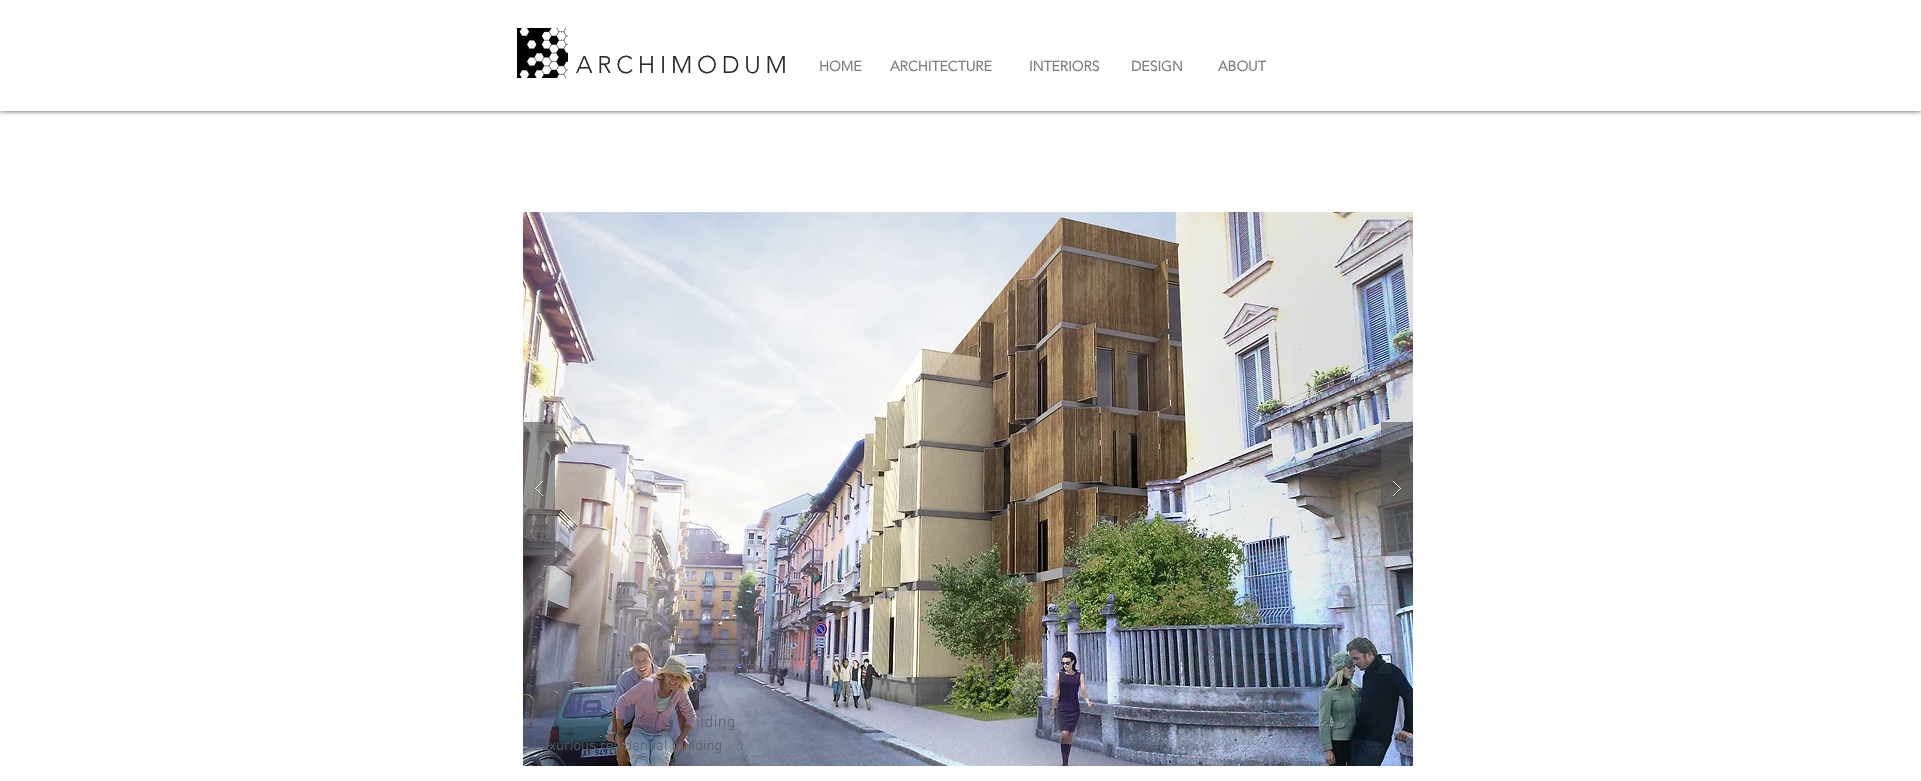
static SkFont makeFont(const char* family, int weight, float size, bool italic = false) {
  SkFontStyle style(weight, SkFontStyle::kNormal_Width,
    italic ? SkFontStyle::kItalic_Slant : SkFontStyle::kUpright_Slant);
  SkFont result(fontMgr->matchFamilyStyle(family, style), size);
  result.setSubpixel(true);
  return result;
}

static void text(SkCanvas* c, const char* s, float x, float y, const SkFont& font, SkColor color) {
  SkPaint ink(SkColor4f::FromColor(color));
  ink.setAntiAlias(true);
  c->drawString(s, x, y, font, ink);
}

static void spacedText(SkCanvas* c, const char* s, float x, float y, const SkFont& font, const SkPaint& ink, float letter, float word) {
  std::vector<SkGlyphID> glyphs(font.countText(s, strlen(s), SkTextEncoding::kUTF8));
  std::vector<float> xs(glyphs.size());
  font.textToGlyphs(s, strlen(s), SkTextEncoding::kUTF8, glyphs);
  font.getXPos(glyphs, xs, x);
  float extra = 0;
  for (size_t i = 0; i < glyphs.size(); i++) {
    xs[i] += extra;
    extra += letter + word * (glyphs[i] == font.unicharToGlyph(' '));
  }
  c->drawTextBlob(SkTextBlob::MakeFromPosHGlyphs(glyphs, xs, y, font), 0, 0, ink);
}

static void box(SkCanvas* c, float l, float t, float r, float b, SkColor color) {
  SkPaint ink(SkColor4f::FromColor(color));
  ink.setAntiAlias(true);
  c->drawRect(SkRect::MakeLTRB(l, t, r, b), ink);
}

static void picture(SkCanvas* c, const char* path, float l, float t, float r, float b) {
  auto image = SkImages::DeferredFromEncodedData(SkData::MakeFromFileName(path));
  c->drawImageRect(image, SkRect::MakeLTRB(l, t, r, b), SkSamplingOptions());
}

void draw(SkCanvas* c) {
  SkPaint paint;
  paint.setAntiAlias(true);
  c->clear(0xffffffff);
  c->save();
  c->clipRect(SkRect::MakeLTRB(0, 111, 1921, 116));
  paint.setColor(0xb3000000);
  paint.setMaskFilter(SkMaskFilter::MakeBlur(kNormal_SkBlurStyle, 2.5f));
  c->drawRect(SkRect::MakeLTRB(0, 0, 1921, 111), paint);
  paint.setMaskFilter(nullptr);
  c->restore();
  picture(c, "img_01.png", 517, 28, 568, 78);
  SkFont face1 = makeFont("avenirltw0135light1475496", 300, 24);
  paint.setColor(0xff2b2b2b);
  spacedText(c, "ARCHIMODUM", 576, 73, face1, paint, 4.75f, 0);
  SkFont face2 = makeFont("avenirltw0135light1475496", 700, 14);
  text(c, "HOME", 819, 71, face2, 0xff808080);
  text(c, "ARCHITECTURE", 890, 71, face2, 0xff808080);
  text(c, "INTERIORS", 1029, 71, face2, 0xff808080);
  text(c, "DESIGN", 1131, 71, face2, 0xff808080);
  text(c, "ABOUT", 1218, 71, face2, 0xff808080);
  picture(c, "img_04.png", 523, 212, 1413, 766);
  SkFont face3 = makeFont("Liberation Sans", 400, 12);
  text(c, "1/6", 1386, 232, face3, 0xffb8b3bb);
  box(c, 523, 422, 555, 556, 0x99555555);
  picture(c, "img_02.png", 535, 481, 543, 497);
  box(c, 1381, 422, 1413, 556, 0x99555555);
  picture(c, "img_03.png", 1393, 481, 1401, 497);
  SkFont face4 = makeFont("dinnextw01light", 300, 17);
  text(c, "ilding", 696, 727, face4, 0xff616475);
  SkFont face5 = makeFont("dinnextw01light", 300, 15);
  text(c, "Luxurious residential building", 533, 750, face5, 0xff595e6d);
}
